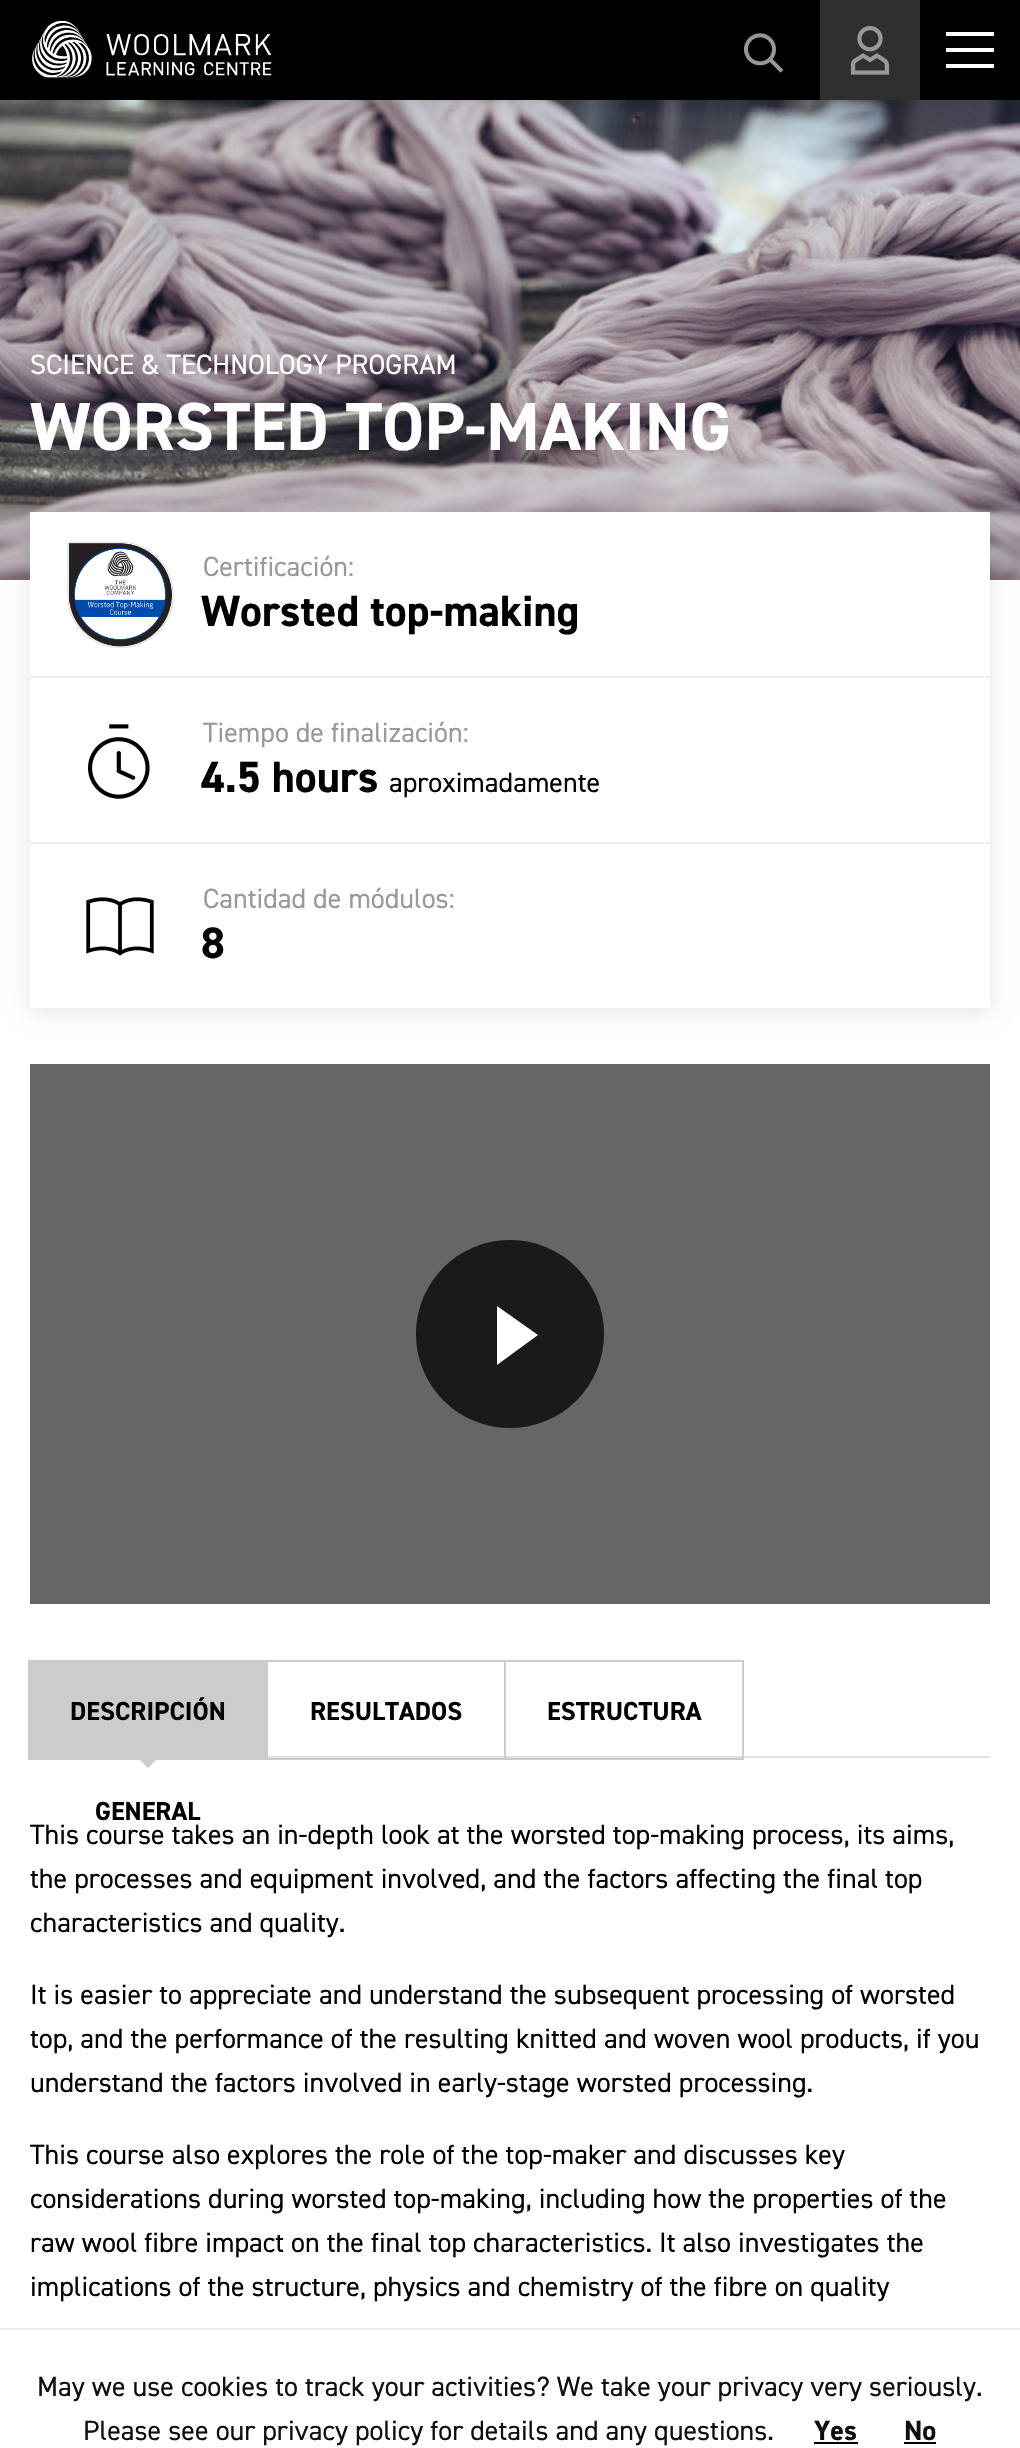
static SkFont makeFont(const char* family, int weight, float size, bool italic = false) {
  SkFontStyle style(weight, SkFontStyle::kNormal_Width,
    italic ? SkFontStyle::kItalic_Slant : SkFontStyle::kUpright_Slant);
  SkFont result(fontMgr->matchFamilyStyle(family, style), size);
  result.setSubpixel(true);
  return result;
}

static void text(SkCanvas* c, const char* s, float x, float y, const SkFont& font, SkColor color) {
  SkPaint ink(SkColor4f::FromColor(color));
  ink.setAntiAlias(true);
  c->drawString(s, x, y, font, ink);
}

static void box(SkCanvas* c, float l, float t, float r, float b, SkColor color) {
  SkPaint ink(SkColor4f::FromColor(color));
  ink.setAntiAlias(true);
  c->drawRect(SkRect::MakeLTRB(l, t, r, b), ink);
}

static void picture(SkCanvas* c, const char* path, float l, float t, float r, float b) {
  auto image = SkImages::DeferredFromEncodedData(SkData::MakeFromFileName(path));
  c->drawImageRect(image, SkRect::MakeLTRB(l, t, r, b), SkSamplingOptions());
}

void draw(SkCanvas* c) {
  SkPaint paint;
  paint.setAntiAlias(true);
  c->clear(0xffffffff);
  picture(c, "img_04.png", 0, 100, 1020, 580);
  paint.setColor(0x1a000000);
  paint.setMaskFilter(SkMaskFilter::MakeBlur(kNormal_SkBlurStyle, 10));
  c->drawRect(SkRect::MakeLTRB(0, -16, 1020, 104), paint);
  paint.setMaskFilter(nullptr);
  box(c, 0, 0, 1020, 100, 0xff000000);
  picture(c, "img_01.png", 32, 20, 272, 78);
  picture(c, "img_02.png", 744, 33, 784, 73);
  box(c, 820, 0, 920, 100, 0xff2f2f2f);
  picture(c, "img_03.png", 850, 26, 890, 75);
  paint.setColor(0xffffffff);
  c->drawPath(SkPathBuilder(SkPathFillType::kEvenOdd).moveTo(946, 48).lineTo(994, 48).lineTo(994, 52).lineTo(946, 52).close().moveTo(946, 64).lineTo(994, 64).lineTo(994, 68).lineTo(946, 68).close().moveTo(946, 32).lineTo(994, 32).lineTo(994, 36).lineTo(946, 36).close().detach(), paint);
  SkFont face1 = makeFont("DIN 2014", 400, 28);
  text(c, "SCIENCE & TECHNOLOGY PROGRAM", 30, 374, face1, 0xffffffff);
  SkFont face2 = makeFont("DIN 2014", 700, 68);
  text(c, "WORSTED TOP-MAKING", 30, 450, face2, 0xffffffff);
  paint.setColor(0x1a000000);
  paint.setMaskFilter(SkMaskFilter::MakeBlur(kNormal_SkBlurStyle, 10));
  c->drawRect(SkRect::MakeLTRB(30, 516, 990, 1012), paint);
  paint.setMaskFilter(nullptr);
  box(c, 30, 512, 990, 1008, 0xffffffff);
  box(c, 30, 676, 990, 678, 0xffeeeeee);
  picture(c, "img_05.png", 67, 541, 174, 648);
  text(c, "Certificación:", 203, 576, face1, 0xff999999);
  SkFont face3 = makeFont("DIN 2014", 700, 44);
  text(c, "Worsted top-making", 201, 626, face3, 0xff000000);
  box(c, 30, 842, 990, 844, 0xffeeeeee);
  picture(c, "img_06.png", 88, 724, 150, 799);
  text(c, "Tiempo de finalización:", 203, 742, face1, 0xff999999);
  text(c, "4.5 hours", 201, 792, face3, 0xff000000);
  text(c, "aproximadamente", 389, 792, face1, 0xff000000);
  picture(c, "img_07.png", 86, 897, 154, 956);
  text(c, "Cantidad de módulos:", 203, 908, face1, 0xff999999);
  text(c, "8", 201, 958, face3, 0xff000000);
  box(c, 30, 1064, 990, 1604, 0xff666666);
  paint.setColor(0xff333333);
  c->drawCircle(510, 1334, 94, paint);
  paint.setColor(0x80000000);
  c->drawCircle(510, 1334, 94, paint);
  paint.setColor(0xffffffff);
  c->drawPath(SkPathBuilder(SkPathFillType::kEvenOdd).moveTo(497, 1306).lineTo(497, 1365).lineTo(538, 1335).close().detach(), paint);
  box(c, 268, 1756, 990, 1758, 0xffdee2e6);
  box(c, 28, 1660, 266, 1760, 0xffcccccc);
  SkFont face4 = makeFont("DIN 2014", 700, 26);
  text(c, "DESCRIPCIÓN", 70, 1720, face4, 0xff000000);
  paint.setColor(0xffcccccc);
  c->drawPath(SkPathBuilder().moveTo(138, 1758).lineTo(158, 1758).lineTo(148, 1768).close().detach(), paint);
  text(c, "GENERAL", 95, 1820, face4, 0xff000000);
  paint.setStyle(SkPaint::kStroke_Style);
  paint.setStrokeWidth(2);
  c->drawRect(SkRect::MakeLTRB(267, 1661, 505, 1759), paint);
  text(c, "RESULTADOS", 310, 1720, face4, 0xff000000);
  c->drawRect(SkRect::MakeLTRB(505, 1661, 743, 1759), paint);
  text(c, "ESTRUCTURA", 547, 1720, face4, 0xff000000);
  text(c, "This course takes an in-depth look at the worsted top-making process, its aims,", 30, 1844, face1, 0xff000000);
  text(c, "the processes and equipment involved, and the factors affecting the final top", 30, 1888, face1, 0xff000000);
  text(c, "characteristics and quality.", 30, 1932, face1, 0xff000000);
  text(c, "It is easier to appreciate and understand the subsequent processing of worsted", 30, 2004, face1, 0xff000000);
  text(c, "top, and the performance of the resulting knitted and woven wool products, if you", 30, 2048, face1, 0xff000000);
  text(c, "understand the factors involved in early-stage worsted processing.", 30, 2092, face1, 0xff000000);
  text(c, "This course also explores the role of the top-maker and discusses key", 30, 2164, face1, 0xff000000);
  text(c, "considerations during worsted top-making, including how the properties of the", 30, 2208, face1, 0xff000000);
  text(c, "raw wool fibre impact on the final top characteristics. It also investigates the", 30, 2252, face1, 0xff000000);
  text(c, "implications of the structure, physics and chemistry of the fibre on quality", 30, 2296, face1, 0xff000000);
  box(c, 0, 2328, 1020, 2330, 0xffeeeeee);
  text(c, "May we use cookies to track your activities? We take your privacy very seriously.", 37, 2396, face1, 0xff0f0f0f);
  text(c, "Please see our privacy policy for details and any questions.", 83, 2440, face1, 0xff0f0f0f);
  SkFont face5 = makeFont("DIN 2014", 700, 28);
  text(c, "Yes", 814, 2440, face5, 0xff0f0f0f);
  box(c, 814, 2442, 858, 2444, 0xff010101);
  text(c, "No", 904, 2440, face5, 0xff0f0f0f);
  box(c, 904, 2442, 936, 2444, 0xff010101);
}
